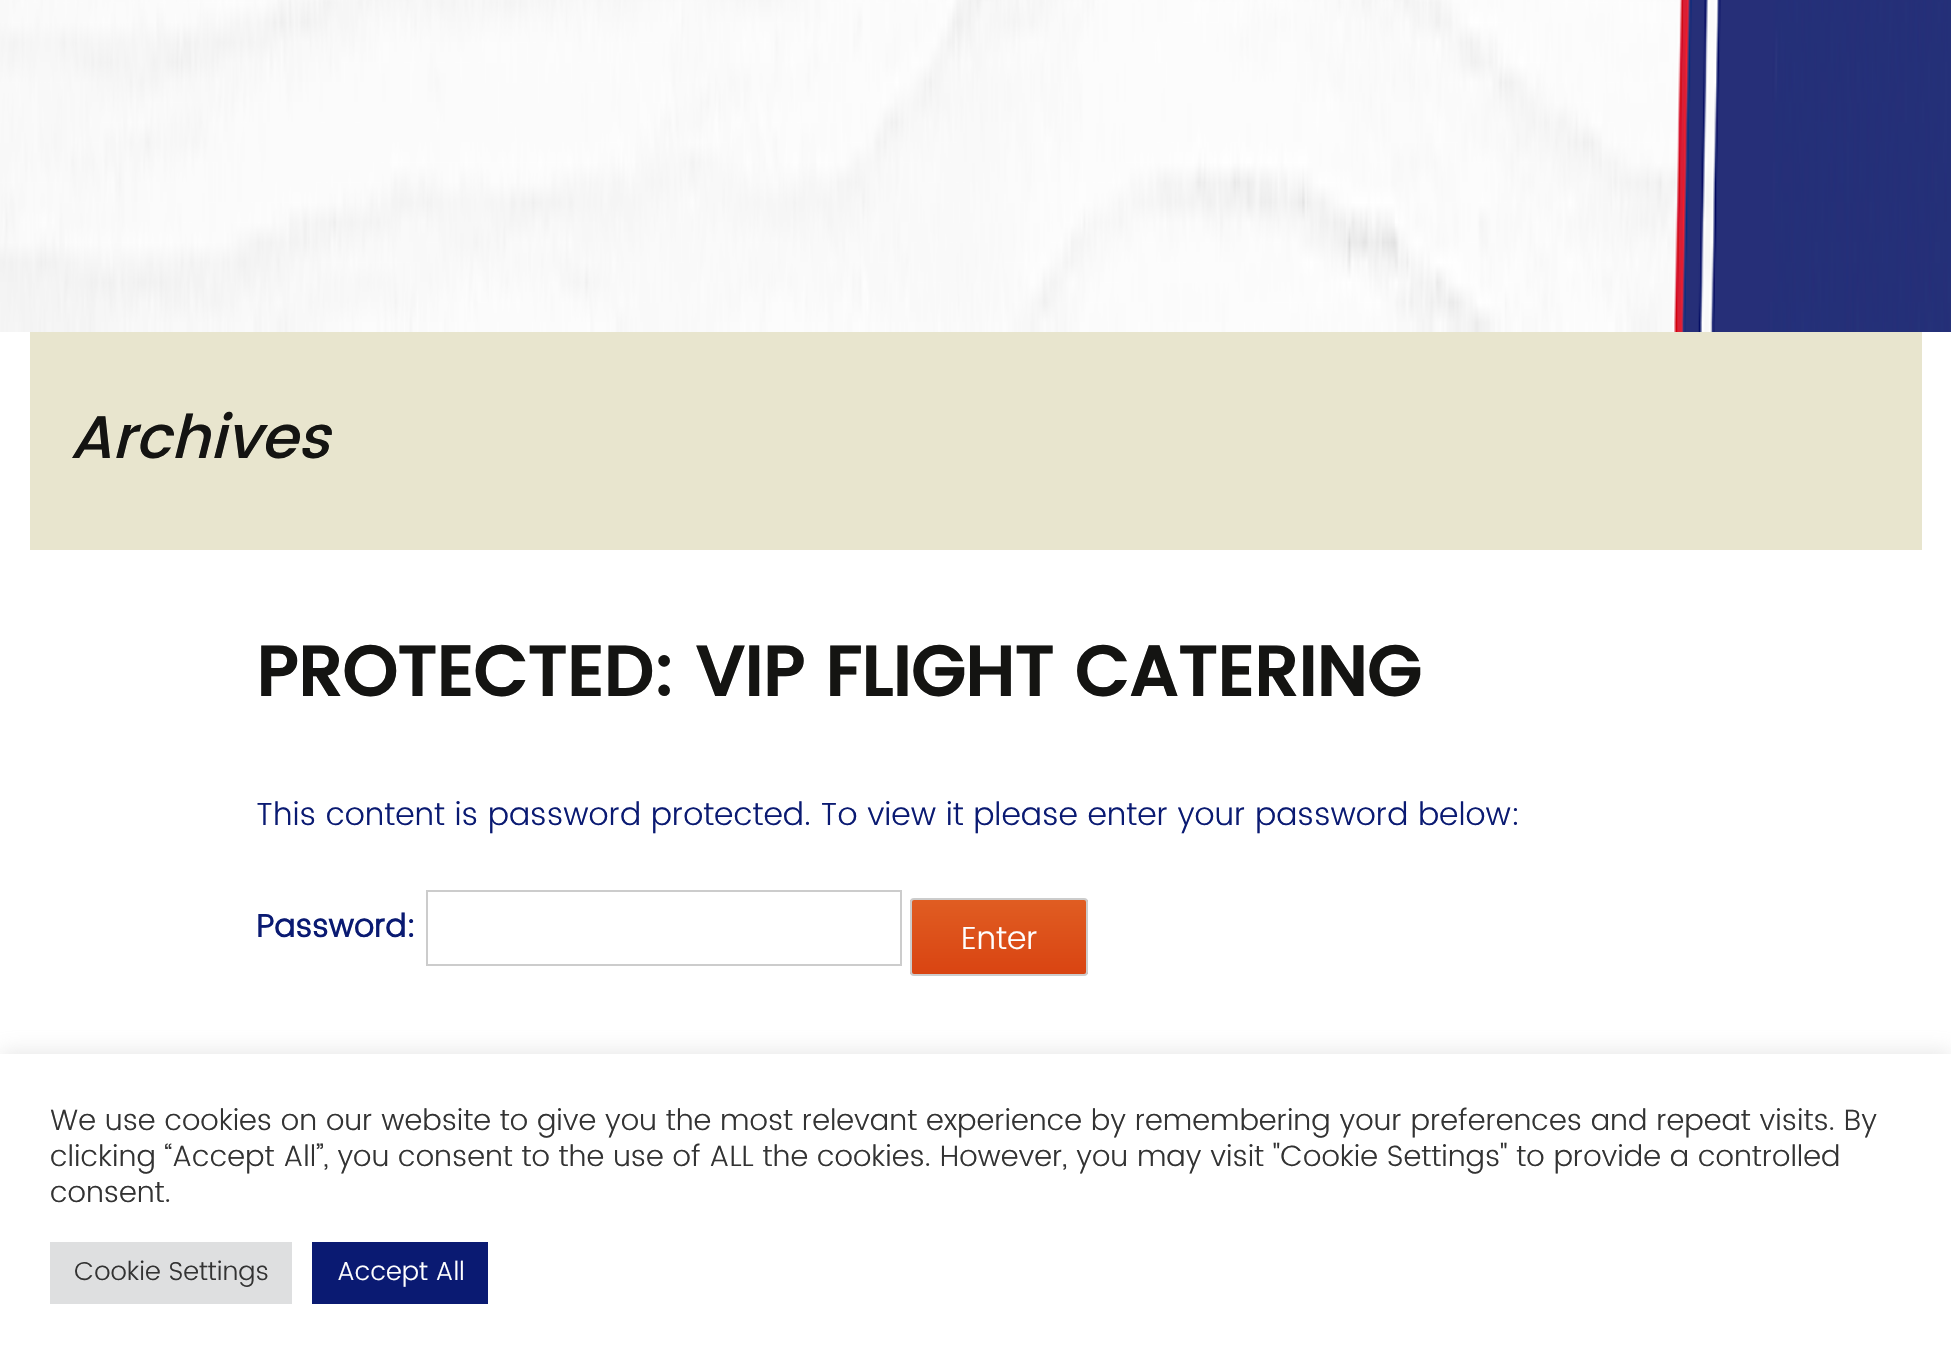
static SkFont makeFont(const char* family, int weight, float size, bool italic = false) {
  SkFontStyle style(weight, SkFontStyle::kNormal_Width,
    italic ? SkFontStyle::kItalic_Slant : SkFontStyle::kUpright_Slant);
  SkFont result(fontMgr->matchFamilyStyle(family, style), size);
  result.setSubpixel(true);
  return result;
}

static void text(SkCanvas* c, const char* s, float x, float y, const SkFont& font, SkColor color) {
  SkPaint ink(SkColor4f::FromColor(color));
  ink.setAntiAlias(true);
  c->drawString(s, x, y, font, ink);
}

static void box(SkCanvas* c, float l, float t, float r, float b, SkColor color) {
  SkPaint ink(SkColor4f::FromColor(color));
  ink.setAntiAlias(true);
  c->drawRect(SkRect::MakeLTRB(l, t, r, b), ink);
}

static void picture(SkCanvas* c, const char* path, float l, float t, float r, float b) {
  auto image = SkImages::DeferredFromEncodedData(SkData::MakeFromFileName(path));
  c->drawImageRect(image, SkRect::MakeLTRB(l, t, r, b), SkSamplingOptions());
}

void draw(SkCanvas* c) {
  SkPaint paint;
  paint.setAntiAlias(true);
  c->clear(0xffffffff);
  picture(c, "img_01.png", 0, 0, 1951, 332);
  box(c, 30, 332, 1922, 550, 0xffe8e5ce);
  SkFont face1 = makeFont("Poppins", 500, 60, true);
  text(c, "Archives", 70, 458, face1, 0xff141412);
  SkFont face2 = makeFont("Poppins", 700, 70);
  text(c, "PROTECTED: VIP FLIGHT CATERING", 256, 696, face2, 0xff141412);
  SkFont face3 = makeFont("Poppins", 300, 32);
  text(c, "This content is password protected. To view it please enter your password below:", 256, 825, face3, 0xff0a1a72);
  SkFont face4 = makeFont("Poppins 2", 700, 32);
  text(c, "Password:", 256, 937, face4, 0xff0a1a72);
  paint.setStyle(SkPaint::kStroke_Style);
  paint.setStrokeWidth(2);
  paint.setColor(0xffcccccc);
  c->drawRect(SkRect::MakeLTRB(427, 891, 901, 965), paint);
  c->save();
  c->clipPath(SkPathBuilder().moveTo(914, 898).lineTo(1084, 898).cubicTo(1086, 898, 1088, 900, 1088, 902).lineTo(1088, 972).cubicTo(1088, 974, 1086, 976, 1084, 976).lineTo(914, 976).cubicTo(912, 976, 910, 974, 910, 972).lineTo(910, 902).cubicTo(910, 900, 912, 898, 914, 898).close().detach(), true);
  paint.setStyle(SkPaint::kFill_Style);
  {
    const SkColor colors[] = {0xffe05d22, 0xffd94412};
    const float stops[] = {0, 1};
    const SkPoint ends[] = {{999, 900}, {999, 974}};
    paint.setShader(SkGradientShader::MakeLinear(ends, colors, stops, 2, SkTileMode::kClamp));
    paint.setAlpha(255);
  }
  c->drawRect(SkRect::MakeLTRB(910, 900, 1088, 974), paint);
  c->restore();
  paint.setStyle(SkPaint::kStroke_Style);
  paint.setShader(nullptr);
  paint.setColor(0xffcccccc);
  c->drawRoundRect(SkRect::MakeLTRB(911, 899, 1087, 975), 3, 3, paint);
  text(c, "Enter", 961, 949, face3, 0xffffffff);
  paint.setStyle(SkPaint::kFill_Style);
  paint.setColor(0x4dacabab);
  paint.setMaskFilter(SkMaskFilter::MakeBlur(kNormal_SkBlurStyle, 10));
  c->drawRect(SkRect::MakeLTRB(0, 1052, 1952, 1362), paint);
  paint.setMaskFilter(nullptr);
  box(c, 0, 1054, 1951, 1363, 0xffffffff);
  SkFont face5 = makeFont("Poppins", 300, 29.33f);
  text(c, "We use cookies on our website to give you the most relevant experience by remembering your preferences and repeat visits. By", 50, 1130, face5, 0xff333333);
  text(c, "clicking “Accept All”, you consent to the use of ALL the cookies. However, you may visit \"Cookie Settings\" to provide a controlled", 50, 1166, face5, 0xff333333);
  text(c, "consent.", 50, 1202, face5, 0xff333333);
  box(c, 50, 1242, 292, 1304, 0xffdedfe0);
  SkFont face6 = makeFont("Poppins", 300, 26);
  text(c, "Cookie Settings", 74, 1280, face6, 0xff333333);
  box(c, 312, 1242, 488, 1304, 0xff0a1a72);
  text(c, "Accept All", 337, 1280, face6, 0xffffffff);
}
